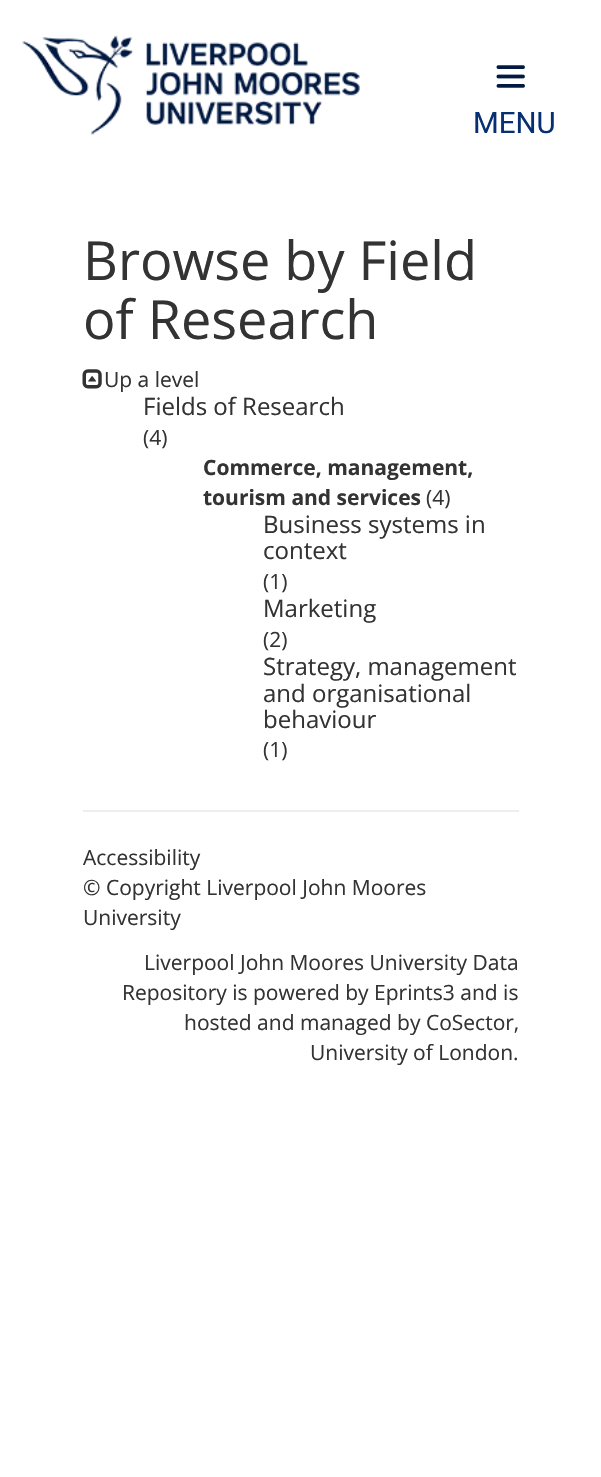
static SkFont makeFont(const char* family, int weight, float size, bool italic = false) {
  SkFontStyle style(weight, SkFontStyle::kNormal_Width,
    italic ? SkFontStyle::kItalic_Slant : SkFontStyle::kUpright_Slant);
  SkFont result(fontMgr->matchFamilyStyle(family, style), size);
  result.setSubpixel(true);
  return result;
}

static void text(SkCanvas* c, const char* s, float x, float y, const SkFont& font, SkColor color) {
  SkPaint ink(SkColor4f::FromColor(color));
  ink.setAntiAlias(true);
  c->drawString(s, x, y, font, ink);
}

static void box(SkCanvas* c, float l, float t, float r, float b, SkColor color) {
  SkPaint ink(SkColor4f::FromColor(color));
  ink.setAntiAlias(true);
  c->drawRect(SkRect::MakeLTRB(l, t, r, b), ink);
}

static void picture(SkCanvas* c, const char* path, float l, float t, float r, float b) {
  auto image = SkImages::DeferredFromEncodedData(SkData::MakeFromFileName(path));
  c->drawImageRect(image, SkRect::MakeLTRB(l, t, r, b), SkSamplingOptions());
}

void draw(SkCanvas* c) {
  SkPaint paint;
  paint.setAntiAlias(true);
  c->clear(0xffffffff);
  picture(c, "img_01.png", 22, 35, 360, 135);
  picture(c, "img_02.png", 496, 65, 525, 88);
  SkFont face1 = makeFont("Roboto", 400, 29.5f);
  text(c, "MENU", 473, 133, face1, 0xff063071);
  SkFont face2 = makeFont("Open Sans", 400, 54);
  text(c, "Browse by Field", 83, 280, face2, 0xff333333);
  text(c, "of Research", 83, 339, face2, 0xff333333);
  picture(c, "img_03.png", 82, 369, 102, 389);
  SkFont face3 = makeFont("Open Sans", 400, 21);
  text(c, "Up a level", 104, 387, face3, 0xff333333);
  SkFont face4 = makeFont("Open Sans", 400, 24);
  text(c, "Fields of Research", 143, 415, face4, 0xff333333);
  text(c, "(4)", 143, 445, face3, 0xff333333);
  SkFont face5 = makeFont("Open Sans", 700, 21);
  text(c, "Commerce, management,", 203, 475, face5, 0xff333333);
  text(c, "tourism and services", 203, 505, face5, 0xff333333);
  text(c, "(4)", 426, 505, face3, 0xff333333);
  text(c, "Business systems in", 263, 533, face4, 0xff333333);
  text(c, "context", 263, 559, face4, 0xff333333);
  text(c, "(1)", 263, 589, face3, 0xff333333);
  text(c, "Marketing", 263, 617, face4, 0xff333333);
  text(c, "(2)", 263, 647, face3, 0xff333333);
  text(c, "Strategy, management", 263, 675, face4, 0xff333333);
  text(c, "and organisational", 263, 702, face4, 0xff333333);
  text(c, "behaviour", 263, 728, face4, 0xff333333);
  text(c, "(1)", 263, 757, face3, 0xff333333);
  box(c, 83, 810, 519, 812, 0xffeeeeee);
  text(c, "Accessibility", 83, 865, face3, 0xff333333);
  text(c, "© Copyright Liverpool John Moores", 83, 895, face3, 0xff333333);
  text(c, "University", 83, 925, face3, 0xff333333);
  text(c, "Liverpool John Moores University Data", 144, 970, face3, 0xff333333);
  text(c, "Repository is powered by Eprints3 and is", 122, 1000, face3, 0xff333333);
  text(c, "hosted and managed by CoSector,", 184, 1030, face3, 0xff333333);
  text(c, "University of London.", 310, 1060, face3, 0xff333333);
}
